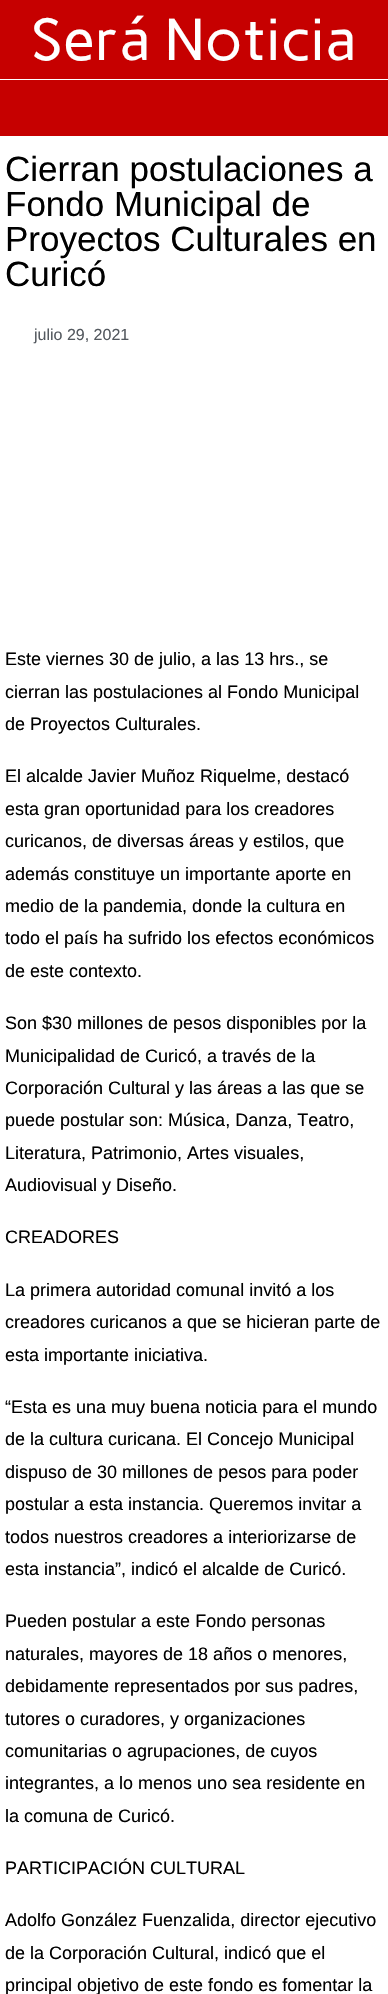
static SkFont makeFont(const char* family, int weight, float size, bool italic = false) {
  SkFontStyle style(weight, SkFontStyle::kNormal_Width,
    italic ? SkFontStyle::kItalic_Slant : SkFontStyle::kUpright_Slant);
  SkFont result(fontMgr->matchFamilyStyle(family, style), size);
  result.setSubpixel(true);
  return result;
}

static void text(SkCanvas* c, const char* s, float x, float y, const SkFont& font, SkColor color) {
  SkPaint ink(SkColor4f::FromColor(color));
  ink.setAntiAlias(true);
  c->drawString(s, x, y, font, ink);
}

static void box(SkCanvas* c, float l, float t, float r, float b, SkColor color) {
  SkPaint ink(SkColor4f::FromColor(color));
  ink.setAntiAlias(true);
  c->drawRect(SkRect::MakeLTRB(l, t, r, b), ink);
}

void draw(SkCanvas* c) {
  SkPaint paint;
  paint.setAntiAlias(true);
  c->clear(0xffffffff);
  box(c, 0, 0, 388, 79, 0xffc60000);
  SkFont face1 = makeFont("Carme", 400, 59);
  text(c, "Será Noticia", 31, 60, face1, 0xffffffff);
  box(c, 0, 80, 388, 136, 0xffc60000);
  SkFont face2 = makeFont("Liberation Sans", 400, 35);
  text(c, "Cierran postulaciones a", 5, 181, face2, 0xff000000);
  text(c, "Fondo Municipal de", 5, 216, face2, 0xff000000);
  text(c, "Proyectos Culturales en", 5, 251, face2, 0xff000000);
  text(c, "Curicó", 5, 286, face2, 0xff000000);
  SkFont face3 = makeFont("Liberation Sans", 400, 16);
  text(c, "julio 29, 2021", 34, 340, face3, 0xff54595f);
  SkFont face4 = makeFont("Liberation Sans", 400, 18);
  text(c, "Este viernes 30 de julio, a las 13 hrs., se", 5, 665, face4, 0xff000000);
  text(c, "cierran las postulaciones al Fondo Municipal", 5, 698, face4, 0xff000000);
  text(c, "de Proyectos Culturales.", 5, 730, face4, 0xff000000);
  text(c, "El alcalde Javier Muñoz Riquelme, destacó", 5, 782, face4, 0xff000000);
  text(c, "esta gran oportunidad para los creadores", 5, 815, face4, 0xff000000);
  text(c, "curicanos, de diversas áreas y estilos, que", 5, 847, face4, 0xff000000);
  text(c, "además constituye un importante aporte en", 5, 880, face4, 0xff000000);
  text(c, "medio de la pandemia, donde la cultura en", 5, 912, face4, 0xff000000);
  text(c, "todo el país ha sufrido los efectos económicos", 5, 944, face4, 0xff000000);
  text(c, "de este contexto.", 5, 977, face4, 0xff000000);
  text(c, "Son $30 millones de pesos disponibles por la", 5, 1029, face4, 0xff000000);
  text(c, "Municipalidad de Curicó, a través de la", 5, 1062, face4, 0xff000000);
  text(c, "Corporación Cultural y las áreas a las que se", 5, 1094, face4, 0xff000000);
  text(c, "puede postular son: Música, Danza, Teatro,", 5, 1126, face4, 0xff000000);
  text(c, "Literatura, Patrimonio, Artes visuales,", 5, 1159, face4, 0xff000000);
  text(c, "Audiovisual y Diseño.", 5, 1191, face4, 0xff000000);
  text(c, "CREADORES", 5, 1243, face4, 0xff000000);
  text(c, "La primera autoridad comunal invitó a los", 5, 1296, face4, 0xff000000);
  text(c, "creadores curicanos a que se hicieran parte de", 5, 1328, face4, 0xff000000);
  text(c, "esta importante iniciativa.", 5, 1361, face4, 0xff000000);
  text(c, "“Esta es una muy buena noticia para el mundo", 5, 1413, face4, 0xff000000);
  text(c, "de la cultura curicana. El Concejo Municipal", 5, 1445, face4, 0xff000000);
  text(c, "dispuso de 30 millones de pesos para poder", 5, 1478, face4, 0xff000000);
  text(c, "postular a esta instancia. Queremos invitar a", 5, 1510, face4, 0xff000000);
  text(c, "todos nuestros creadores a interiorizarse de", 5, 1543, face4, 0xff000000);
  text(c, "esta instancia”, indicó el alcalde de Curicó.", 5, 1575, face4, 0xff000000);
  text(c, "Pueden postular a este Fondo personas", 5, 1627, face4, 0xff000000);
  text(c, "naturales, mayores de 18 años o menores,", 5, 1660, face4, 0xff000000);
  text(c, "debidamente representados por sus padres,", 5, 1692, face4, 0xff000000);
  text(c, "tutores o curadores, y organizaciones", 5, 1725, face4, 0xff000000);
  text(c, "comunitarias o agrupaciones, de cuyos", 5, 1757, face4, 0xff000000);
  text(c, "integrantes, a lo menos uno sea residente en", 5, 1789, face4, 0xff000000);
  text(c, "la comuna de Curicó.", 5, 1822, face4, 0xff000000);
  text(c, "PARTICIPACIÓN CULTURAL", 5, 1874, face4, 0xff000000);
  text(c, "Adolfo González Fuenzalida, director ejecutivo", 5, 1926, face4, 0xff000000);
  text(c, "de la Corporación Cultural, indicó que el", 5, 1959, face4, 0xff000000);
  text(c, "principal objetivo de este fondo es fomentar la", 5, 1991, face4, 0xff000000);
}
